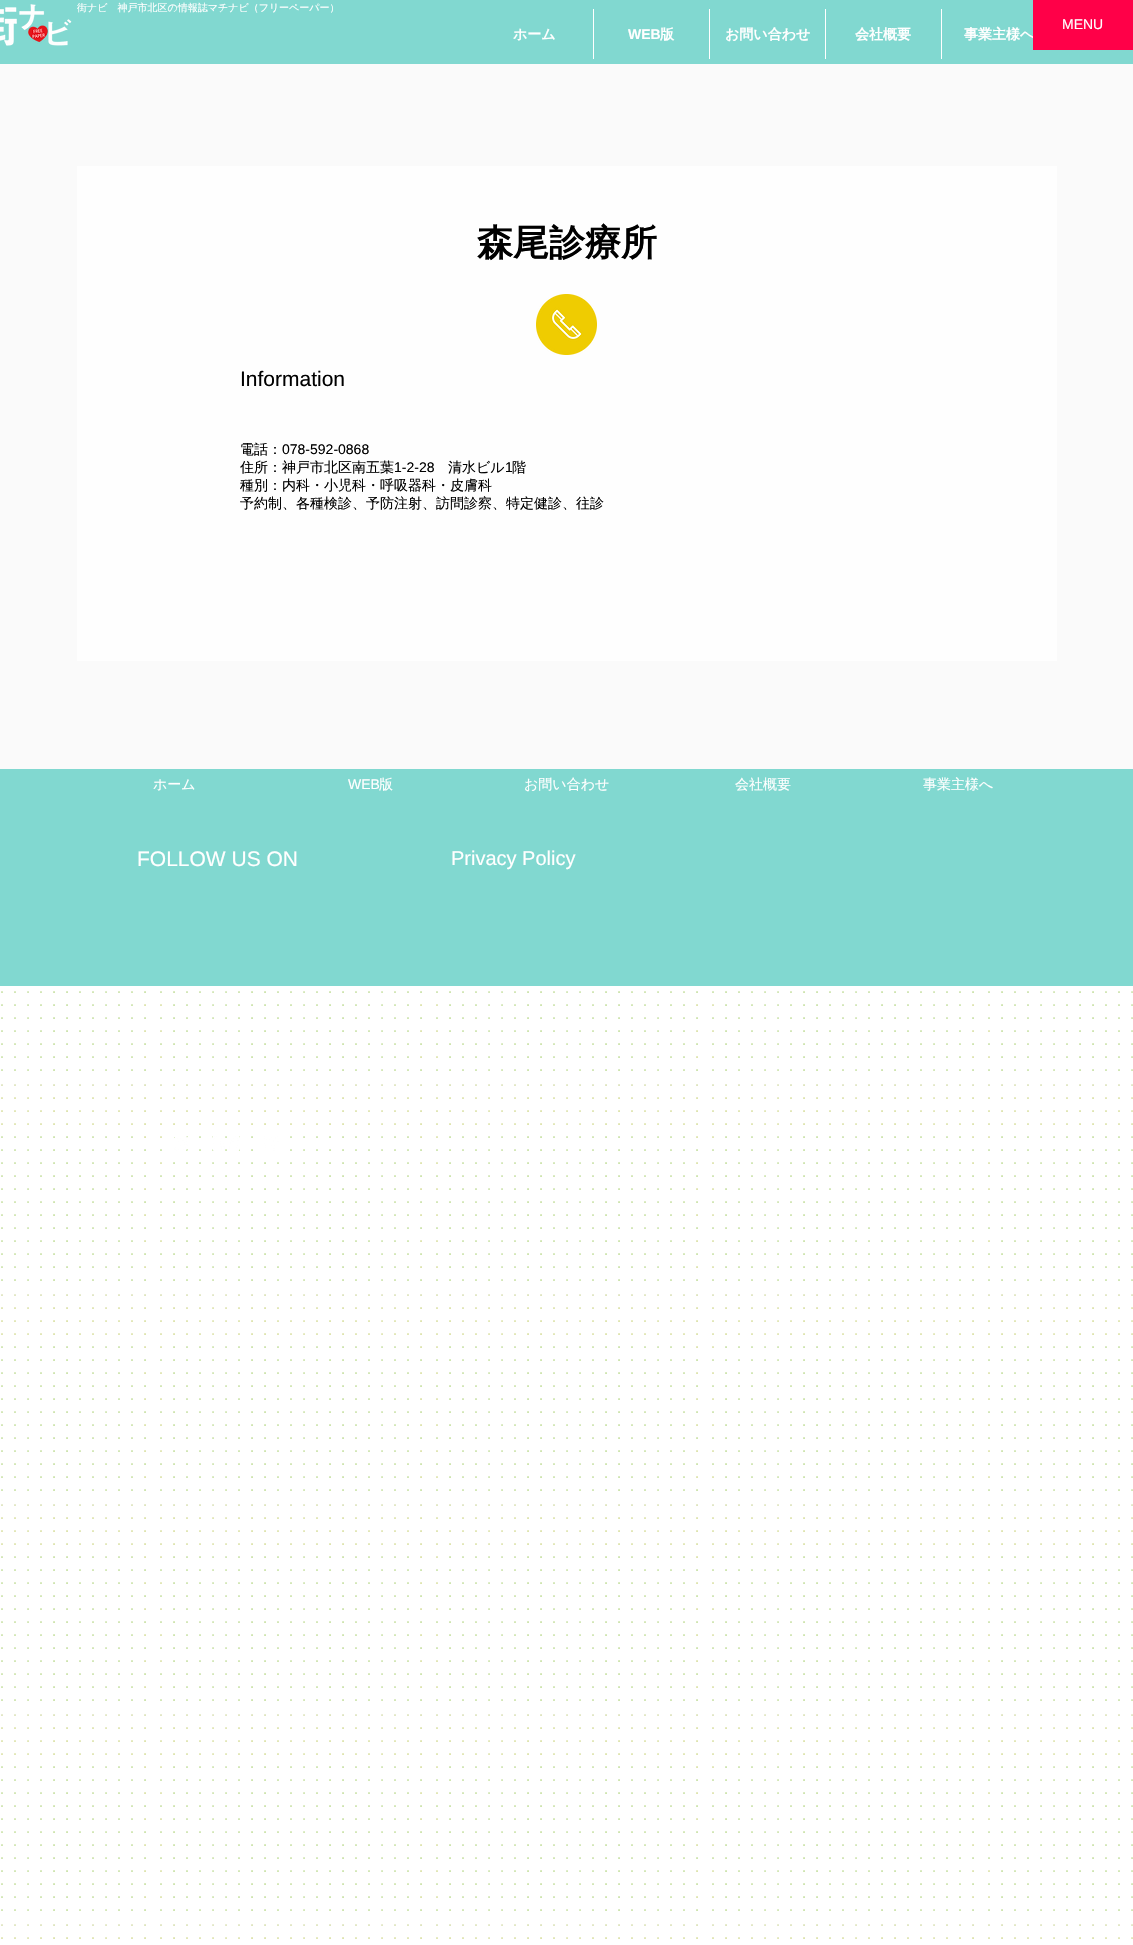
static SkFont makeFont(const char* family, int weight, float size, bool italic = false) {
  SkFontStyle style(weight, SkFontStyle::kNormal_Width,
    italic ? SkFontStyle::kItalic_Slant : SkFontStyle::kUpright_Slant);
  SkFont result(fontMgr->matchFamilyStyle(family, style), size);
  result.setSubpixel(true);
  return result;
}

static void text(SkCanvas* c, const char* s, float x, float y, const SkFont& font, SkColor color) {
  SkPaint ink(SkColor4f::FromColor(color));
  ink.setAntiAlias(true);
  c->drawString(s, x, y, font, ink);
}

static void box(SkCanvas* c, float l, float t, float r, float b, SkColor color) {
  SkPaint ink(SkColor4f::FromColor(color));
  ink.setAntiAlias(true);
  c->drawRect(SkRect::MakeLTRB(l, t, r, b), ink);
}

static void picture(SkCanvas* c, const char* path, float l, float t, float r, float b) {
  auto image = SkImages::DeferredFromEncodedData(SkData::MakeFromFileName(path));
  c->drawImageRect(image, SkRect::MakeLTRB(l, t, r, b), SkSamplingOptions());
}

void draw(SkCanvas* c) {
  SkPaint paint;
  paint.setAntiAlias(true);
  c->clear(0xffffffff);
  box(c, 0, 0, 1133, 64, 0xff81d8d0);
  picture(c, "img_01.png", 0, 4, 72, 46);
  SkFont face1 = makeFont("WenQuanYi Zen Hei", 500, 10);
  text(c, "街ナビ　神戸市北区の情報誌マチナビ（フリーペーパー）", 77, 11, face1, 0xffffffff);
  SkFont face2 = makeFont("WenQuanYi Zen Hei", 700, 14);
  text(c, "ホーム", 513, 39, face2, 0xffffffff);
  box(c, 593, 9, 594, 59, 0xffffffff);
  SkFont face3 = makeFont("Liberation Sans", 700, 14);
  text(c, "WEB", 628, 39, face3, 0xffffffff);
  text(c, "版", 660, 39, face2, 0xffffffff);
  box(c, 709, 9, 710, 59, 0xffffffff);
  text(c, "お問い合わせ", 725, 39, face2, 0xffffffff);
  box(c, 825, 9, 826, 59, 0xffffffff);
  text(c, "会社概要", 855, 39, face2, 0xffffffff);
  box(c, 941, 9, 942, 59, 0xffffffff);
  text(c, "事業主様へ", 964, 39, face2, 0xffffffff);
  box(c, 1033, 0, 1133, 50, 0xffff0048);
  SkFont face4 = makeFont("Liberation Sans", 400, 14);
  text(c, "MENU", 1062, 29, face4, 0xffffffff);
  box(c, 0, 64, 1133, 769, 0xfffafafa);
  box(c, 77, 166, 1057, 661, 0xfffefefe);
  SkFont face5 = makeFont("WenQuanYi Zen Hei", 700, 36);
  text(c, "森尾診療所", 477, 255, face5, 0xff000000);
  picture(c, "img_02.png", 536, 294, 597, 355);
  SkFont face6 = makeFont("Liberation Sans", 400, 21);
  text(c, "Information", 240, 386, face6, 0xff000000);
  SkFont face7 = makeFont("WenQuanYi Zen Hei", 500, 14);
  text(c, "電話：", 240, 454, face7, 0xff000000);
  text(c, "078-592-0868", 282, 454, face4, 0xff000000);
  text(c, "住所：神戸市北区南五葉", 240, 472, face7, 0xff000000);
  text(c, "1-2-28", 394, 472, face4, 0xff000000);
  text(c, "清水ビル", 448, 472, face7, 0xff000000);
  text(c, "1", 505, 472, face4, 0xff000000);
  text(c, "階", 512, 472, face7, 0xff000000);
  text(c, "種別：内科・小児科・呼吸器科・皮膚科", 240, 490, face7, 0xff000000);
  text(c, "予約制、各種検診、予防注射、訪問診察、特定健診、往診", 240, 508, face7, 0xff000000);
  box(c, 0, 769, 1133, 986, 0xff81d8d0);
  text(c, "ホーム", 153, 789, face7, 0xffffffff);
  text(c, "WEB", 348, 789, face4, 0xffffffff);
  text(c, "版", 379, 789, face7, 0xffffffff);
  text(c, "お問い合わせ", 524, 789, face7, 0xffffffff);
  text(c, "会社概要", 735, 789, face7, 0xffffffff);
  text(c, "事業主様へ", 923, 789, face7, 0xffffffff);
  text(c, "FOLLOW US ON", 137, 866, face6, 0xffffffff);
  SkFont face8 = makeFont("Liberation Sans", 400, 20);
  text(c, "Privacy Policy", 451, 865, face8, 0xffffffff);
  picture(c, "img_06.png", 0, 986, 1133, 1945);
  picture(c, "img_03.png", 173, 1136, 188, 1151);
  picture(c, "img_04.png", 212, 1136, 240, 1151);
  picture(c, "img_05.png", 264, 1136, 279, 1151);
}
